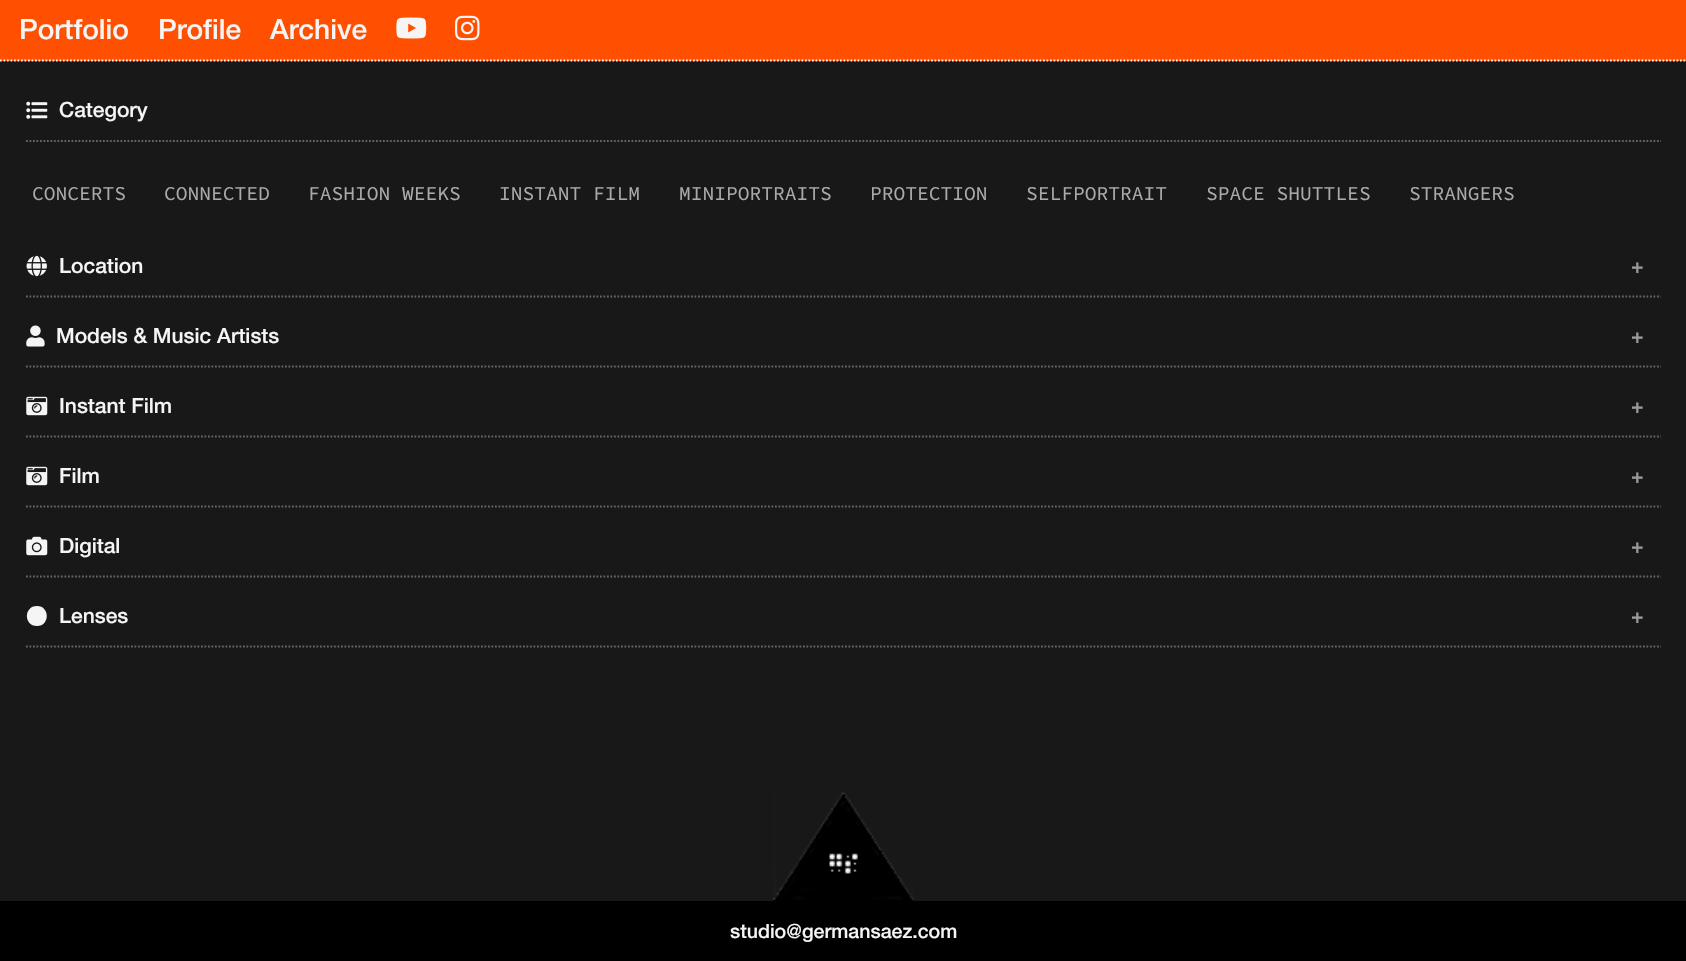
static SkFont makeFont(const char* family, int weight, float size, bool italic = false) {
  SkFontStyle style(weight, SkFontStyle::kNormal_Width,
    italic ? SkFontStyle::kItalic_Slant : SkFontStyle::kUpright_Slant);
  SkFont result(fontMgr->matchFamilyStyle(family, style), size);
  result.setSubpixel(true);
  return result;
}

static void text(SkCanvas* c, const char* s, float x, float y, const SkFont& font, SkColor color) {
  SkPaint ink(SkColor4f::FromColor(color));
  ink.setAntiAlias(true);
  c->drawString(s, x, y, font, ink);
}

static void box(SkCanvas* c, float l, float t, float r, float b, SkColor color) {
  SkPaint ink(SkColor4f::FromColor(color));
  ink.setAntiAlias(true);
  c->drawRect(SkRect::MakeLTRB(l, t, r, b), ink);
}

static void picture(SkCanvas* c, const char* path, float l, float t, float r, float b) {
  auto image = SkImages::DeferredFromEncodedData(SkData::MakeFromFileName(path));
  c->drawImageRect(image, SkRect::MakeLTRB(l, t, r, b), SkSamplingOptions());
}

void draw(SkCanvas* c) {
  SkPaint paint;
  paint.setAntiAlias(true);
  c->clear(0xff181818);
  box(c, 0, 0, 1686, 61, 0xffff4f00);
  paint.setStyle(SkPaint::kStroke_Style);
  paint.setStrokeWidth(1.8f);
  paint.setColor(0xfff5f5f5);
  paint.setPathEffect(SkDashPathEffect::Make({{1.75f, 1.75f}}, 0));
  c->drawPath(SkPathBuilder().moveTo(0, 60.5f).lineTo(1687, 60.5f).detach(), paint);
  paint.setPathEffect(nullptr);
  SkFont face1 = makeFont("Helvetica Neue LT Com", 500, 28);
  text(c, "Portfolio", 19, 39, face1, 0xfff5f5f5);
  text(c, "Profile", 158, 39, face1, 0xfff5f5f5);
  text(c, "Archive", 270, 39, face1, 0xfff5f5f5);
  picture(c, "img_01.png", 396, 17, 427, 39);
  picture(c, "img_02.png", 455, 15, 480, 41);
  paint.setColor(0xff666666);
  paint.setPathEffect(SkDashPathEffect::Make({{1.75f, 1.75f}}, 0));
  c->drawPath(SkPathBuilder().moveTo(26, 141).lineTo(1661, 141).detach(), paint);
  paint.setPathEffect(nullptr);
  picture(c, "img_03.png", 26, 101, 48, 119);
  SkFont face2 = makeFont("Helvetica Neue LT Com", 500, 21);
  text(c, "Category", 59, 117, face2, 0xfff5f5f5);
  SkFont face3 = makeFont("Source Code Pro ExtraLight", 400, 19.6f);
  text(c, "CONCERTS", 32, 200, face3, 0xffaaaaaa);
  text(c, "CONNECTED", 164, 200, face3, 0xffaaaaaa);
  text(c, "FASHION WEEKS", 308, 200, face3, 0xffaaaaaa);
  text(c, "INSTANT FILM", 499, 200, face3, 0xffaaaaaa);
  text(c, "MINIPORTRAITS", 679, 200, face3, 0xffaaaaaa);
  text(c, "PROTECTION", 870, 200, face3, 0xffaaaaaa);
  text(c, "SELFPORTRAIT", 1026, 200, face3, 0xffaaaaaa);
  text(c, "SPACE SHUTTLES", 1206, 200, face3, 0xffaaaaaa);
  text(c, "STRANGERS", 1409, 200, face3, 0xffaaaaaa);
  paint.setPathEffect(SkDashPathEffect::Make({{1.75f, 1.75f}}, 0));
  c->drawPath(SkPathBuilder().moveTo(26, 296.5f).lineTo(1661, 296.5f).detach(), paint);
  paint.setPathEffect(nullptr);
  picture(c, "img_04.png", 26, 255, 47, 277);
  text(c, "Location", 59, 273, face2, 0xfff5f5f5);
  text(c, "+", 1631, 273, face2, 0xff999999);
  paint.setPathEffect(SkDashPathEffect::Make({{1.75f, 1.75f}}, 0));
  c->drawPath(SkPathBuilder().moveTo(26, 366.5f).lineTo(1661, 366.5f).detach(), paint);
  paint.setPathEffect(nullptr);
  picture(c, "img_05.png", 26, 325, 45, 347);
  text(c, "Models & Music Artists", 56, 343, face2, 0xfff5f5f5);
  text(c, "+", 1631, 343, face2, 0xff999999);
  paint.setPathEffect(SkDashPathEffect::Make({{1.75f, 1.75f}}, 0));
  c->drawPath(SkPathBuilder().moveTo(26, 436.5f).lineTo(1661, 436.5f).detach(), paint);
  paint.setPathEffect(nullptr);
  picture(c, "img_06.png", 26, 396, 48, 416);
  text(c, "Instant Film", 59, 413, face2, 0xfff5f5f5);
  text(c, "+", 1631, 413, face2, 0xff999999);
  paint.setPathEffect(SkDashPathEffect::Make({{1.75f, 1.75f}}, 0));
  c->drawPath(SkPathBuilder().moveTo(26, 506.5f).lineTo(1661, 506.5f).detach(), paint);
  paint.setPathEffect(nullptr);
  picture(c, "img_06.png", 26, 466, 48, 486);
  text(c, "Film", 59, 483, face2, 0xfff5f5f5);
  text(c, "+", 1631, 483, face2, 0xff999999);
  paint.setPathEffect(SkDashPathEffect::Make({{1.75f, 1.75f}}, 0));
  c->drawPath(SkPathBuilder().moveTo(26, 576.5f).lineTo(1661, 576.5f).detach(), paint);
  paint.setPathEffect(nullptr);
  picture(c, "img_07.png", 26, 536, 48, 556);
  text(c, "Digital", 59, 553, face2, 0xfff5f5f5);
  text(c, "+", 1631, 553, face2, 0xff999999);
  paint.setPathEffect(SkDashPathEffect::Make({{1.75f, 1.75f}}, 0));
  c->drawPath(SkPathBuilder().moveTo(26, 646.5f).lineTo(1661, 646.5f).detach(), paint);
  paint.setPathEffect(nullptr);
  paint.setStyle(SkPaint::kFill_Style);
  paint.setColor(0xfff5f5f5);
  c->drawPath(SkPathBuilder().moveTo(37, 606).cubicTo(23.5f, 606, 23.5f, 626, 37, 626).cubicTo(50, 626, 50, 606, 37, 606).close().detach(), paint);
  text(c, "Lenses", 59, 623, face2, 0xfff5f5f5);
  text(c, "+", 1631, 623, face2, 0xff999999);
  picture(c, "img_08.png", 773, 792, 914, 901);
  box(c, 0, 901, 1686, 961, 0xff000000);
  SkFont face4 = makeFont("Helvetica Neue LT Com", 500, 19.6f);
  text(c, "studio@germansaez.com", 730, 938, face4, 0xfff5f5f5);
}
